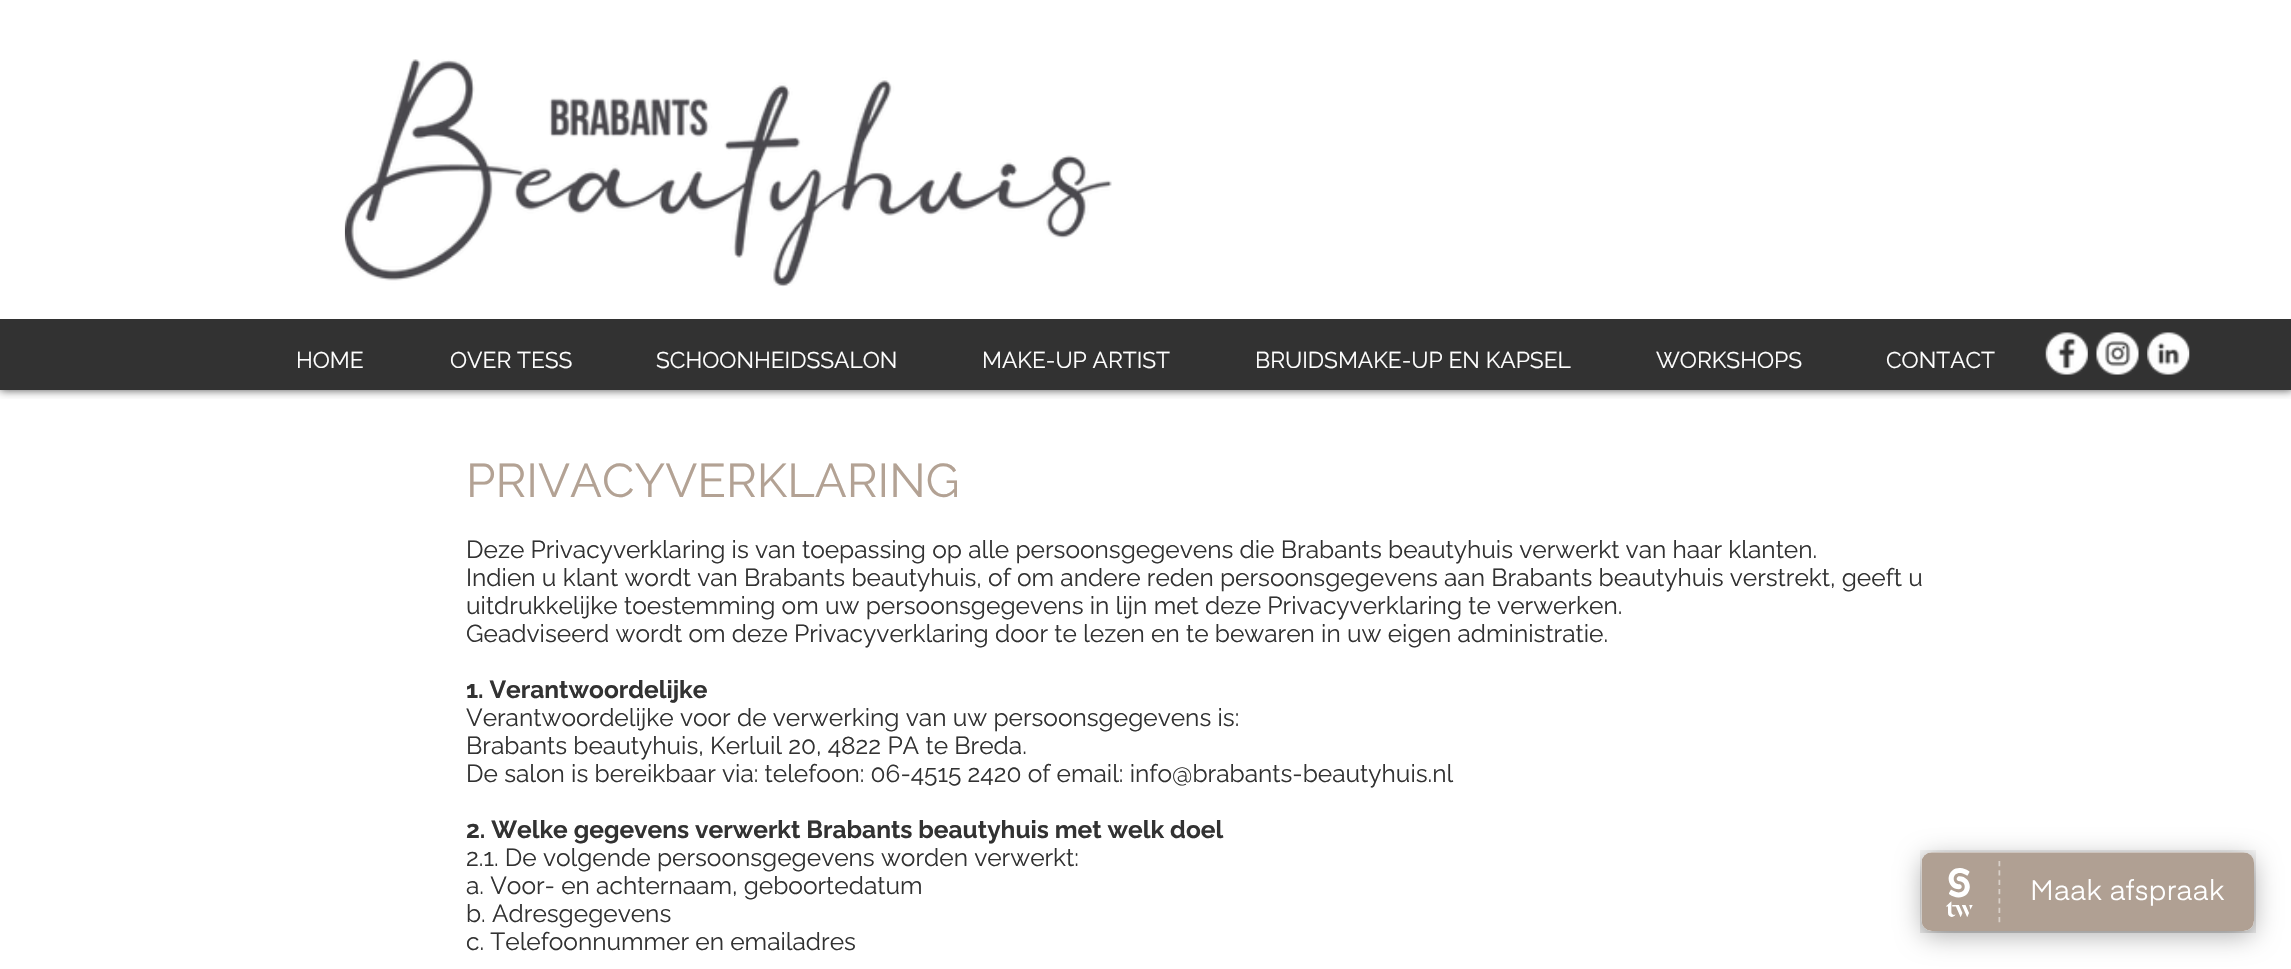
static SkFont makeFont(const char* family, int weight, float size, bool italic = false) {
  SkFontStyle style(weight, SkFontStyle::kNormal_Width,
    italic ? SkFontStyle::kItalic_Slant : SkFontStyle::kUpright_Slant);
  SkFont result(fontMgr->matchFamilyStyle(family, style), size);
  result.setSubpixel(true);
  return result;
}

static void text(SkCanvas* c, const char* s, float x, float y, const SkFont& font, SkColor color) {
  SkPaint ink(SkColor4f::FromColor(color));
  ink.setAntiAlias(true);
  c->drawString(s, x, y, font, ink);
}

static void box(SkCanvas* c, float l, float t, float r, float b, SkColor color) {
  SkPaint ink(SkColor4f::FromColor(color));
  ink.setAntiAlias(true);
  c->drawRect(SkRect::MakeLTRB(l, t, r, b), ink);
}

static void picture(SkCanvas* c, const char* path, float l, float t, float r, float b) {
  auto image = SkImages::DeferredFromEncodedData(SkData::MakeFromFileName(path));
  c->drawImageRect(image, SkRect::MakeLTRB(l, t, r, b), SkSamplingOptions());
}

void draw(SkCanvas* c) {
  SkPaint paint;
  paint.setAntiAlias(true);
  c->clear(0xffffffff);
  c->save();
  c->clipRect(SkRect::MakeLTRB(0, 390, 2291, 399));
  paint.setColor(0xb3000000);
  paint.setMaskFilter(SkMaskFilter::MakeBlur(kNormal_SkBlurStyle, 4.5f));
  c->drawRect(SkRect::MakeLTRB(0, 0, 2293, 390), paint);
  paint.setMaskFilter(nullptr);
  c->restore();
  picture(c, "img_01.png", 344, 59, 1112, 287);
  box(c, 0, 319, 2291, 390, 0xff323232);
  SkFont face1 = makeFont("Raleway", 400, 22.75f);
  text(c, "HOME", 296, 368, face1, 0xffffffff);
  text(c, "OVER TESS", 450, 368, face1, 0xffffffff);
  text(c, "SCHOONHEIDSSALON", 656, 368, face1, 0xffffffff);
  text(c, "MAKE-UP ARTIST", 982, 368, face1, 0xffffffff);
  text(c, "BRUIDSMAKE-UP EN KAPSEL", 1255, 368, face1, 0xffffffff);
  text(c, "WORKSHOPS", 1656, 368, face1, 0xffffffff);
  text(c, "CONTACT", 1886, 368, face1, 0xffffffff);
  picture(c, "img_02.png", 2045, 332, 2088, 375);
  picture(c, "img_03.png", 2096, 332, 2139, 375);
  picture(c, "img_04.png", 2147, 332, 2190, 375);
  SkFont face2 = makeFont("Raleway", 400, 47.25f);
  text(c, "PRIVACYVERKLARING", 466, 497, face2, 0xffb3a294);
  SkFont face3 = makeFont("Raleway", 400, 24.5f);
  text(c, "Deze Privacyverklaring is van toepassing op alle persoonsgegevens die Brabants beautyhuis verwerkt van haar klanten.", 466, 558, face3, 0xff323232);
  text(c, "Indien u klant wordt van Brabants beautyhuis, of om andere reden persoonsgegevens aan Brabants beautyhuis verstrekt, geeft u", 466, 586, face3, 0xff323232);
  text(c, "uitdrukkelijke toestemming om uw persoonsgegevens in lijn met deze Privacyverklaring te verwerken.", 466, 614, face3, 0xff323232);
  text(c, "Geadviseerd wordt om deze Privacyverklaring door te lezen en te bewaren in uw eigen administratie.", 466, 642, face3, 0xff323232);
  SkFont face4 = makeFont("Raleway", 700, 24.5f);
  text(c, "1. Verantwoordelijke", 466, 698, face4, 0xff323232);
  text(c, "Verantwoordelijke voor de verwerking van uw persoonsgegevens is:", 466, 726, face3, 0xff323232);
  text(c, "Brabants beautyhuis, Kerluil 20, 4822 PA te Breda.", 466, 754, face3, 0xff323232);
  text(c, "De salon is bereikbaar via: telefoon: 06-4515 2420 of email: info@brabants-beautyhuis.nl", 466, 782, face3, 0xff323232);
  text(c, "2. Welke gegevens verwerkt Brabants beautyhuis met welk doel", 466, 838, face4, 0xff323232);
  text(c, "2.1. De volgende persoonsgegevens worden verwerkt:", 466, 866, face3, 0xff323232);
  text(c, "a. Voor- en achternaam, geboortedatum", 466, 894, face3, 0xff323232);
  text(c, "b. Adresgegevens", 466, 922, face3, 0xff323232);
  text(c, "c. Telefoonnummer en emailadres", 466, 950, face3, 0xff323232);
  paint.setColor(0x4d000000);
  paint.setMaskFilter(SkMaskFilter::MakeBlur(kNormal_SkBlurStyle, 13));
  c->drawRoundRect(SkRect::MakeLTRB(1922, 858, 2254, 936), 11, 11, paint);
  paint.setMaskFilter(nullptr);
  picture(c, "img_05.png", 1920, 850, 2256, 933);
}
